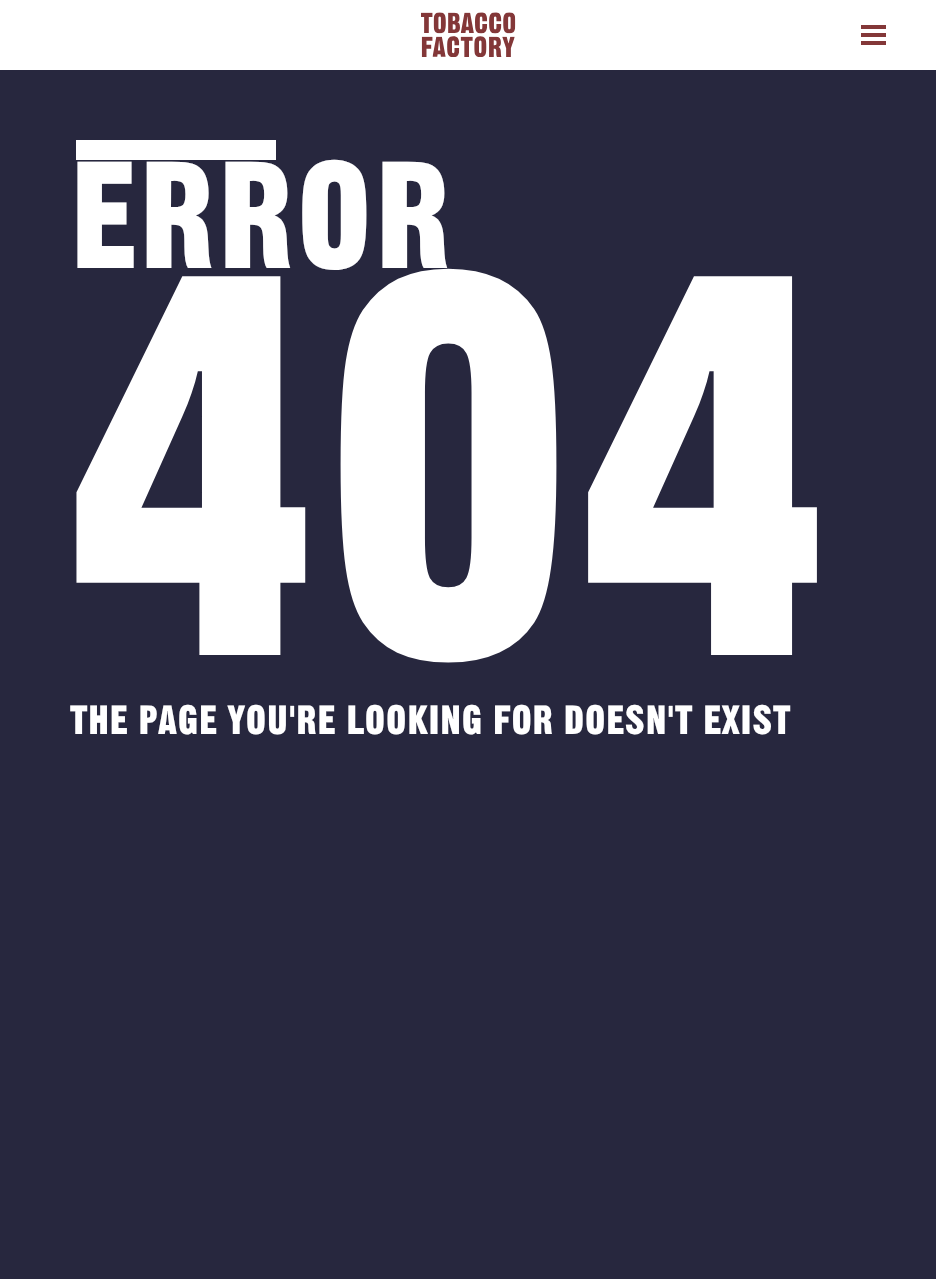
static SkFont makeFont(const char* family, int weight, float size, bool italic = false) {
  SkFontStyle style(weight, SkFontStyle::kNormal_Width,
    italic ? SkFontStyle::kItalic_Slant : SkFontStyle::kUpright_Slant);
  SkFont result(fontMgr->matchFamilyStyle(family, style), size);
  result.setSubpixel(true);
  return result;
}

static void spacedText(SkCanvas* c, const char* s, float x, float y, const SkFont& font, const SkPaint& ink, float letter, float word) {
  std::vector<SkGlyphID> glyphs(font.countText(s, strlen(s), SkTextEncoding::kUTF8));
  std::vector<float> xs(glyphs.size());
  font.textToGlyphs(s, strlen(s), SkTextEncoding::kUTF8, glyphs);
  font.getXPos(glyphs, xs, x);
  float extra = 0;
  for (size_t i = 0; i < glyphs.size(); i++) {
    xs[i] += extra;
    extra += letter + word * (glyphs[i] == font.unicharToGlyph(' '));
  }
  c->drawTextBlob(SkTextBlob::MakeFromPosHGlyphs(glyphs, xs, y, font), 0, 0, ink);
}

static void box(SkCanvas* c, float l, float t, float r, float b, SkColor color) {
  SkPaint ink(SkColor4f::FromColor(color));
  ink.setAntiAlias(true);
  c->drawRect(SkRect::MakeLTRB(l, t, r, b), ink);
}

static void picture(SkCanvas* c, const char* path, float l, float t, float r, float b) {
  auto image = SkImages::DeferredFromEncodedData(SkData::MakeFromFileName(path));
  c->drawImageRect(image, SkRect::MakeLTRB(l, t, r, b), SkSamplingOptions());
}

void draw(SkCanvas* c) {
  SkPaint paint;
  paint.setAntiAlias(true);
  c->clear(0xffffffff);
  picture(c, "img_01.png", 421, 12, 516, 57);
  box(c, 861, 33, 886, 37, 0xff833738);
  box(c, 861, 25, 886, 29, 0xff833738);
  box(c, 861, 41, 886, 45, 0xff833738);
  box(c, 0, 70, 936, 1279, 0xff27273e);
  box(c, 76, 140, 276, 160, 0xffffffff);
  SkFont face1 = makeFont("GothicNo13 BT", 400, 148.5f);
  paint.setColor(0xffffffff);
  spacedText(c, "ERROR", 70, 268, face1, paint, 3, 0);
  SkFont face2 = makeFont("GothicNo13 BT", 400, 530);
  spacedText(c, "404", 70, 655, face2, paint, 10.5f, 0);
  SkFont face3 = makeFont("GothicNo13 BT", 400, 40);
  spacedText(c, "THE PAGE YOU'RE LOOKING FOR DOESN'T EXIST", 70, 734, face3, paint, 0.8f, 0);
}
